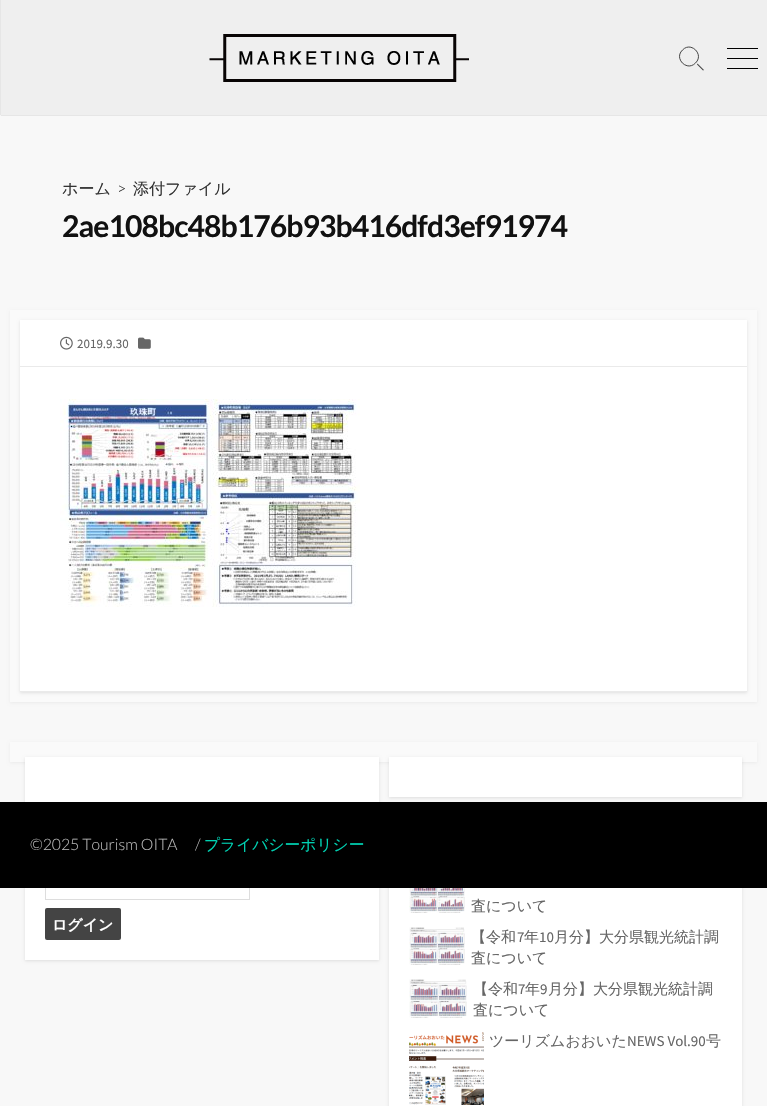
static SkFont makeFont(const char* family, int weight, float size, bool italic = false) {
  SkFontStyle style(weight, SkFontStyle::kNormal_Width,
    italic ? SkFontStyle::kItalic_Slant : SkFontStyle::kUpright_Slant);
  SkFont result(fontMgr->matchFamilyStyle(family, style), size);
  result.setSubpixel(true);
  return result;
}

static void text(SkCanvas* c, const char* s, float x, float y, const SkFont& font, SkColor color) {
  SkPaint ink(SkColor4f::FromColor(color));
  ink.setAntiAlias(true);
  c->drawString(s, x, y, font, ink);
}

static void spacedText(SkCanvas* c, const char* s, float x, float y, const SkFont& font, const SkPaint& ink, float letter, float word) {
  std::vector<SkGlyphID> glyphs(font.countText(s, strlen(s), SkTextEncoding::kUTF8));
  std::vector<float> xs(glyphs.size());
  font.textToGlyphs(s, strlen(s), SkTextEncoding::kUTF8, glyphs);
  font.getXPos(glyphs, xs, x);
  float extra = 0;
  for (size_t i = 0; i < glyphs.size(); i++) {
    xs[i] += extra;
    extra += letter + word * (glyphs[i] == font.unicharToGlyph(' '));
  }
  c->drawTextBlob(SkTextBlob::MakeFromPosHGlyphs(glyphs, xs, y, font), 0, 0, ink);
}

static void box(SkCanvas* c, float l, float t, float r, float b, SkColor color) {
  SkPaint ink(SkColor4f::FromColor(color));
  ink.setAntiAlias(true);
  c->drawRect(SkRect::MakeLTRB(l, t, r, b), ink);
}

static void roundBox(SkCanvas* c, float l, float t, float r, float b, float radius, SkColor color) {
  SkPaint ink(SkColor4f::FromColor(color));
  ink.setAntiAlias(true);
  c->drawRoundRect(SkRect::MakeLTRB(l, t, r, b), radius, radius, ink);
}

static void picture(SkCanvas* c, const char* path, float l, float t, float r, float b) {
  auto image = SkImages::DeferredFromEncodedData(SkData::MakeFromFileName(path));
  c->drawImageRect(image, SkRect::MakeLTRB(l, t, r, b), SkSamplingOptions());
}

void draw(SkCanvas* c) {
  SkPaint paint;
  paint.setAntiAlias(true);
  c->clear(0xfff8f8f8);
  paint.setColor(0x66000000);
  paint.setMaskFilter(SkMaskFilter::MakeBlur(kNormal_SkBlurStyle, 0.5f));
  c->drawRect(SkRect::MakeLTRB(1, 0, 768, 115), paint);
  paint.setMaskFilter(nullptr);
  box(c, 1, 0, 767, 115, 0xffefefef);
  picture(c, "img_01.png", 209, 34, 469, 82);
  paint.setStyle(SkPaint::kStroke_Style);
  paint.setStrokeWidth(1);
  paint.setColor(0xff444444);
  c->drawPath(SkPathBuilder().moveTo(682.5f, 50).cubicTo(691, 41, 704.5f, 54.5f, 695.5f, 63).cubicTo(687, 72, 673.5f, 58.5f, 682.5f, 50).close().detach(), paint);
  paint.setStyle(SkPaint::kFill_Style);
  c->drawPath(SkPathBuilder().moveTo(697, 64.5f).lineTo(697.5f, 63.5f).lineTo(704, 70).lineTo(703, 70.5f).close().detach(), paint);
  box(c, 727, 48, 758, 49, 0xff000000);
  box(c, 727, 58, 758, 59, 0xff000000);
  box(c, 727, 68, 758, 69, 0xff000000);
  SkFont face1 = makeFont("WenQuanYi Zen Hei", 500, 16);
  text(c, "ホーム", 62, 194, face1, 0xff333333);
  SkFont face2 = makeFont("Lato", 300, 16);
  text(c, ">", 117, 194, face2, 0xff333333);
  text(c, "添付ファイル", 133, 194, face1, 0xff333333);
  SkFont face3 = makeFont("Lato", 700, 30);
  paint.setColor(0xff111111);
  spacedText(c, "2ae108bc48b176b93b416dfd3ef91974", 62, 237, face3, paint, -0.9f, 0);
  paint.setColor(0x0d000000);
  paint.setMaskFilter(SkMaskFilter::MakeBlur(kNormal_SkBlurStyle, 1.5f));
  c->drawRect(SkRect::MakeLTRB(10, 311, 757, 703), paint);
  paint.setMaskFilter(nullptr);
  box(c, 10, 310, 757, 702, 0xfffafafa);
  paint.setColor(0x1a000000);
  paint.setMaskFilter(SkMaskFilter::MakeBlur(kNormal_SkBlurStyle, 1.5f));
  c->drawRect(SkRect::MakeLTRB(20, 321, 747, 693), paint);
  paint.setMaskFilter(nullptr);
  box(c, 20, 320, 747, 691, 0xffffffff);
  box(c, 20, 366, 747, 367, 0xffeaeaea);
  picture(c, "img_02.png", 60, 336, 73, 350);
  SkFont face4 = makeFont("Source Sans Pro", 400, 13);
  text(c, "2019.9.30", 77, 348, face4, 0xff666666);
  picture(c, "img_03.png", 138, 337, 151, 349);
  box(c, 20, 691, 747, 692, 0xffeaeaea);
  picture(c, "img_04.png", 60, 399, 360, 607);
  paint.setColor(0x0d000000);
  paint.setMaskFilter(SkMaskFilter::MakeBlur(kNormal_SkBlurStyle, 1.5f));
  c->drawRect(SkRect::MakeLTRB(10, 743, 757, 763), paint);
  paint.setMaskFilter(nullptr);
  box(c, 10, 742, 757, 762, 0xfffafafa);
  paint.setColor(0x1a000000);
  paint.setMaskFilter(SkMaskFilter::MakeBlur(kNormal_SkBlurStyle, 1.5f));
  c->drawRect(SkRect::MakeLTRB(389, 758, 742, 798), paint);
  paint.setMaskFilter(nullptr);
  box(c, 389, 757, 742, 797, 0xffffffff);
  paint.setMaskFilter(SkMaskFilter::MakeBlur(kNormal_SkBlurStyle, 1.5f));
  c->drawRect(SkRect::MakeLTRB(25, 758, 379, 961), paint);
  paint.setMaskFilter(nullptr);
  box(c, 25, 757, 379, 960, 0xffffffff);
  paint.setStyle(SkPaint::kStroke_Style);
  paint.setColor(0xffdddddd);
  c->drawRect(SkRect::MakeLTRB(45.5f, 869.5f, 249.5f, 899.5f), paint);
  roundBox(c, 45, 908, 121, 940, 2, 0xff444444);
  SkFont face5 = makeFont("WenQuanYi Zen Hei", 700, 15);
  text(c, "ログイン", 52, 930, face5, 0xffffffff);
  paint.setStyle(SkPaint::kFill_Style);
  paint.setColor(0x1a000000);
  paint.setMaskFilter(SkMaskFilter::MakeBlur(kNormal_SkBlurStyle, 1.5f));
  c->drawRect(SkRect::MakeLTRB(389, 808, 742, 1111), paint);
  paint.setMaskFilter(nullptr);
  box(c, 389, 888, 742, 1106, 0xffffffff);
  picture(c, "img_05.png", 409, 888, 465, 913);
  SkFont face6 = makeFont("WenQuanYi Zen Hei", 500, 15);
  text(c, "査について", 471, 911, face6, 0xff666666);
  picture(c, "img_06.png", 409, 927, 465, 965);
  text(c, "【令和", 471, 942, face6, 0xff666666);
  SkFont face7 = makeFont("Source Sans Pro", 400, 15);
  text(c, "7", 517, 942, face7, 0xff666666);
  text(c, "年", 524, 942, face6, 0xff666666);
  text(c, "10", 539, 942, face7, 0xff666666);
  text(c, "月分】大分県観光統計調", 554, 942, face6, 0xff666666);
  text(c, "査について", 471, 963, face6, 0xff666666);
  picture(c, "img_07.png", 409, 979, 467, 1018);
  text(c, "【令和", 473, 994, face6, 0xff666666);
  text(c, "7", 518, 994, face7, 0xff666666);
  text(c, "年", 525, 994, face6, 0xff666666);
  text(c, "9", 540, 994, face7, 0xff666666);
  text(c, "月分】大分県観光統計調", 548, 994, face6, 0xff666666);
  text(c, "査について", 473, 1015, face6, 0xff666666);
  picture(c, "img_08.png", 409, 1032, 484, 1105);
  text(c, "ツーリズムおおいた", 489, 1046, face6, 0xff666666);
  text(c, "NEWS Vol.90", 627, 1046, face7, 0xff666666);
  text(c, "号", 706, 1046, face6, 0xff666666);
  box(c, 0, 802, 767, 888, 0xff000000);
  SkFont face8 = makeFont("Lato", 300, 15.75f);
  text(c, "©2025 Tourism OITA", 30, 850, face8, 0xffb8b8b8);
  text(c, "/", 195, 850, face8, 0xffb8b8b8);
  SkFont face9 = makeFont("WenQuanYi Zen Hei", 500, 15.75f);
  text(c, "プライバシーポリシー", 204, 850, face9, 0xff00d1b2);
}
